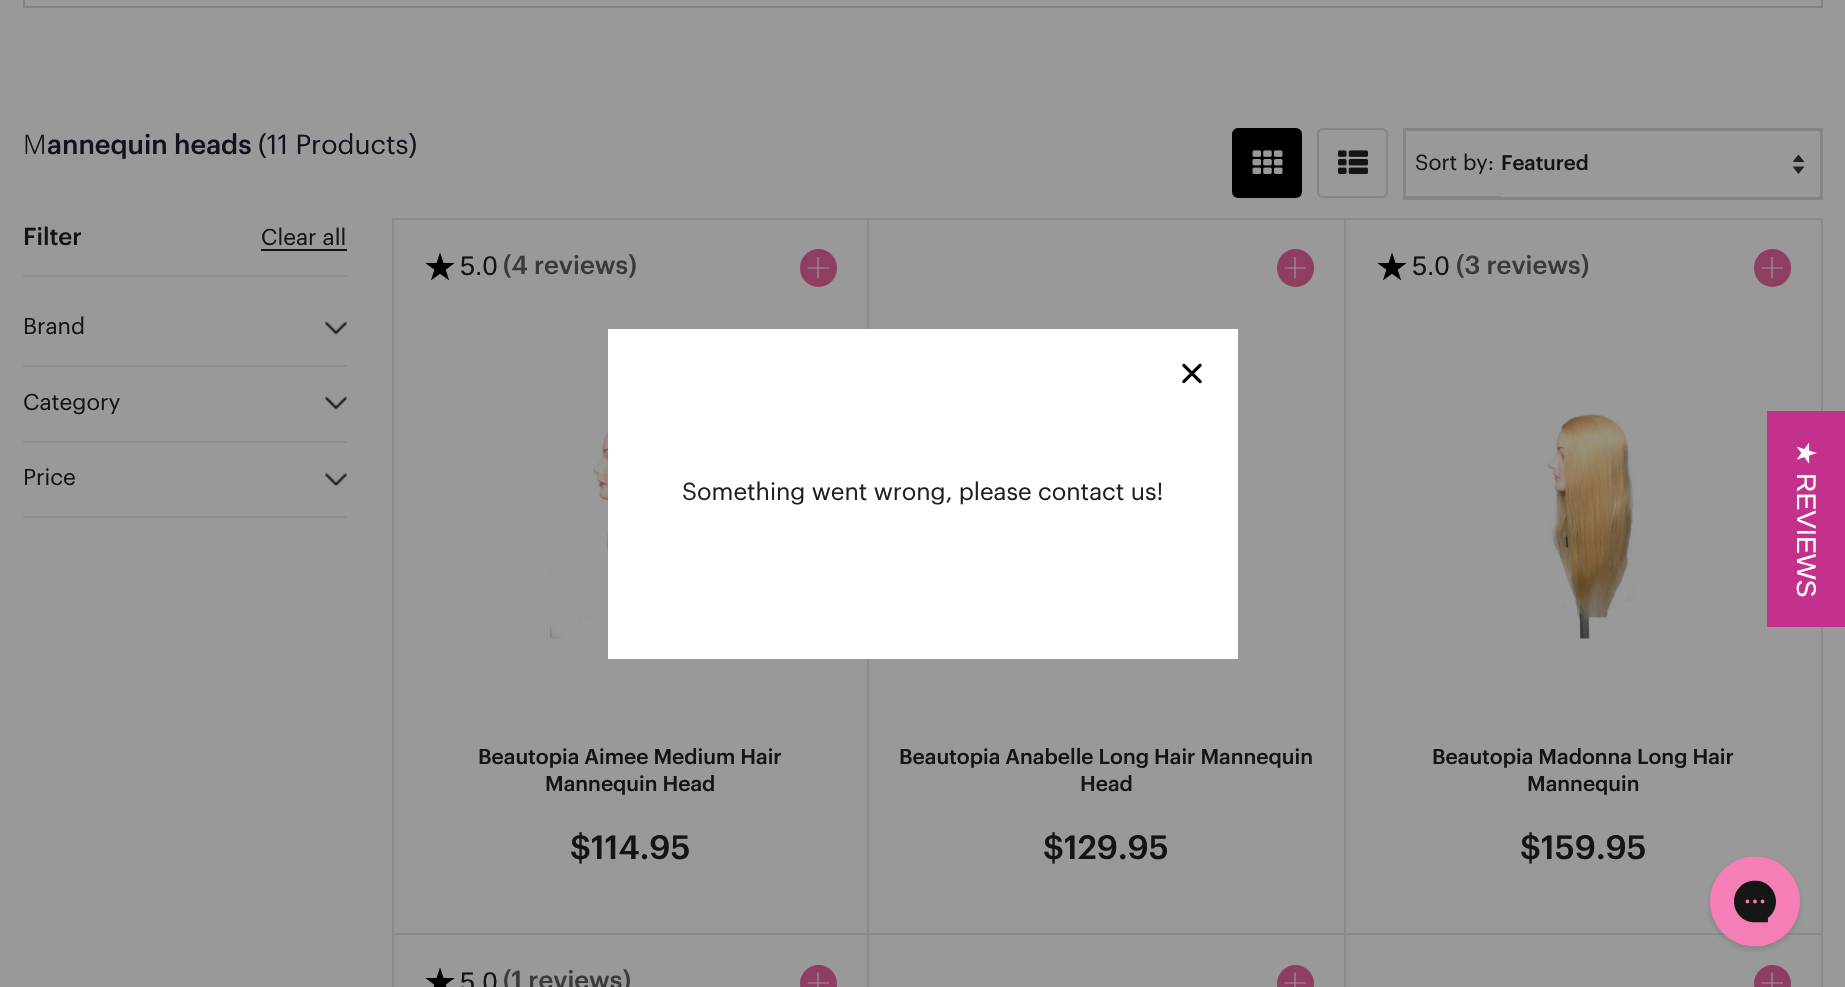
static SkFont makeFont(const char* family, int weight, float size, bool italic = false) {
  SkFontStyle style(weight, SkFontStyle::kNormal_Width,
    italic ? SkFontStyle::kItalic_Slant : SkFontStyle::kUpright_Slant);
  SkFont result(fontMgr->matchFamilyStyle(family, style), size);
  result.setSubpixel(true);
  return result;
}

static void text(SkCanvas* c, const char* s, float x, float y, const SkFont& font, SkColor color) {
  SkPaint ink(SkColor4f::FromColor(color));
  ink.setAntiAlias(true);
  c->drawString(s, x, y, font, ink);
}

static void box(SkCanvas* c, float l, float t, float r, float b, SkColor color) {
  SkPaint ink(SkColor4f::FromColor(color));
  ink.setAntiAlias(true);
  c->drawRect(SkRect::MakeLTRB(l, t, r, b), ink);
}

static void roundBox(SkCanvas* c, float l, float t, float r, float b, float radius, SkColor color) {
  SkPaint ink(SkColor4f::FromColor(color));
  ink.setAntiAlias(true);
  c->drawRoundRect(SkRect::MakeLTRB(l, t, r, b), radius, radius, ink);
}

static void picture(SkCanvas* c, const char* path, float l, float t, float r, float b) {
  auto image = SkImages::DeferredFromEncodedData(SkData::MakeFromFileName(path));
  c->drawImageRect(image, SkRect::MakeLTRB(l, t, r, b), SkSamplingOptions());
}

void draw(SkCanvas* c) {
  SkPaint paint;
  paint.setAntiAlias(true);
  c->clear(0xff999999);
  paint.setStyle(SkPaint::kStroke_Style);
  paint.setStrokeWidth(2);
  paint.setColor(0xff838383);
  c->drawRect(SkRect::MakeLTRB(24, -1, 1822, 7), paint);
  SkFont face1 = makeFont("Noto Sans", 300, 27);
  text(c, "M", 23, 154, face1, 0xff10121c);
  SkFont face2 = makeFont("Graphik", 500, 27);
  text(c, "annequin heads", 47, 154, face2, 0xff10121c);
  SkFont face3 = makeFont("Graphik", 400, 27);
  text(c, "(11 Products)", 258, 154, face3, 0xff10121c);
  paint.setStyle(SkPaint::kFill_Style);
  paint.setColor(0xff000000);
  c->drawRoundRect(SkRect::MakeLTRB(1233, 129, 1301, 197), 5, 5, paint);
  paint.setStyle(SkPaint::kStroke_Style);
  c->drawRoundRect(SkRect::MakeLTRB(1233, 129, 1301, 197), 5, 5, paint);
  picture(c, "img_01.png", 1252, 150, 1283, 174);
  paint.setColor(0xff858585);
  c->drawRoundRect(SkRect::MakeLTRB(1318, 129, 1387, 197), 5, 5, paint);
  picture(c, "img_02.png", 1338, 150, 1368, 174);
  c->drawRect(SkRect::MakeLTRB(1404, 129, 1822, 199), paint);
  c->drawRect(SkRect::MakeLTRB(1405, 130, 1820, 197), paint);
  SkFont face4 = makeFont("Graphik", 400, 21.5f);
  text(c, "Sort by:", 1415, 170, face4, 0xff151313);
  roundBox(c, 1500, 131, 1820, 197, 3, 0xff999999);
  picture(c, "img_03.png", 1793, 155, 1805, 174);
  SkFont face5 = makeFont("Graphik", 500, 20.5f);
  text(c, "Featured", 1501, 170, face5, 0xff151313);
  box(c, 23, 275, 347, 277, 0xff8f8f8f);
  SkFont face6 = makeFont("Graphik", 500, 24);
  text(c, "Filter", 23, 245, face6, 0xff151313);
  SkFont face7 = makeFont("Graphik", 400, 22.5f);
  text(c, "Clear all", 261, 245, face7, 0xff151313);
  box(c, 261, 249, 347, 251, 0xff151313);
  box(c, 23, 365, 347, 367, 0xff8e8c8c);
  text(c, "Brand", 23, 334, face7, 0xff151313);
  picture(c, "img_04.png", 325, 321, 347, 335);
  box(c, 23, 441, 347, 443, 0xff8e8c8c);
  text(c, "Category", 23, 410, face7, 0xff151313);
  picture(c, "img_04.png", 325, 396, 347, 410);
  box(c, 23, 516, 347, 518, 0xff8e8c8c);
  text(c, "Price", 23, 485, face7, 0xff151313);
  picture(c, "img_05.png", 325, 473, 347, 486);
  paint.setColor(0xff8b8b8b);
  c->drawRect(SkRect::MakeLTRB(393, 219, 868, 934), paint);
  SkFont face8 = makeFont("DejaVu Sans", 400, 38);
  text(c, "★", 423, 280, face8, 0xff000000);
  SkFont face9 = makeFont("Liberation Sans", 400, 27);
  text(c, "5.0", 460, 275, face9, 0xff151313);
  SkFont face10 = makeFont("Graphik", 500, 25.5f);
  text(c, "(4 reviews)", 503, 274, face10, 0xff3a3a3a);
  roundBox(c, 800, 249, 837, 287, 18.5f, 0xff8f3d61);
  paint.setStrokeWidth(1.2f);
  paint.setColor(0xff999999);
  c->drawPath(SkPathBuilder().moveTo(818, 278.5f).lineTo(818, 257).moveTo(807.5f, 268).lineTo(829, 268).detach(), paint);
  picture(c, "img_06.png", 550, 410, 608, 639);
  SkFont face11 = makeFont("Graphik", 500, 21);
  text(c, "Beautopia Aimee Medium Hair", 478, 764, face11, 0xff151313);
  text(c, "Mannequin Head", 545, 791, face11, 0xff151313);
  SkFont face12 = makeFont("Graphik", 500, 33);
  text(c, "$114.95", 570, 859, face12, 0xff151313);
  box(c, 869, 218, 1823, 220, 0xff8b8b8b);
  box(c, 1344, 219, 1346, 987, 0xff8b8b8b);
  box(c, 869, 933, 1346, 935, 0xff8b8b8b);
  roundBox(c, 1277, 249, 1314, 287, 18.5f, 0xff8f3d61);
  c->drawPath(SkPathBuilder().moveTo(1295, 278.5f).lineTo(1295, 257).moveTo(1284.5f, 268).lineTo(1306, 268).detach(), paint);
  text(c, "Beautopia Anabelle Long Hair Mannequin", 899, 764, face11, 0xff151313);
  text(c, "Head", 1080, 791, face11, 0xff151313);
  text(c, "$129.95", 1043, 859, face12, 0xff151313);
  box(c, 1821, 219, 1823, 987, 0xff8b8b8b);
  box(c, 1346, 933, 1823, 935, 0xff8b8b8b);
  text(c, "★", 1375, 280, face8, 0xff000000);
  text(c, "5.0", 1412, 275, face9, 0xff151313);
  text(c, "(3 reviews)", 1456, 274, face10, 0xff3a3a3a);
  roundBox(c, 1754, 249, 1791, 287, 18.5f, 0xff8f3d61);
  c->drawPath(SkPathBuilder().moveTo(1772, 278.5f).lineTo(1772, 257).moveTo(1761.5f, 268).lineTo(1783, 268).detach(), paint);
  picture(c, "img_07.png", 1547, 414, 1636, 639);
  text(c, "Beautopia Madonna Long Hair", 1432, 764, face11, 0xff151313);
  text(c, "Mannequin", 1527, 791, face11, 0xff151313);
  text(c, "$159.95", 1520, 859, face12, 0xff151313);
  box(c, 867, 935, 869, 987, 0xff8b8b8b);
  box(c, 392, 935, 394, 987, 0xff8b8b8b);
  text(c, "★", 423, 995, face8, 0xff000000);
  text(c, "5.0", 460, 991, face9, 0xff151313);
  text(c, "(1 reviews)", 503, 989, face10, 0xff3a3a3a);
  paint.setStyle(SkPaint::kFill_Style);
  paint.setColor(0xff8f3d61);
  c->drawCircle(818.5f, 983.5f, 18.5f, paint);
  paint.setStyle(SkPaint::kStroke_Style);
  paint.setColor(0xff999999);
  c->drawPath(SkPathBuilder().moveTo(818, 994).lineTo(818, 972.5f).moveTo(807.5f, 983).lineTo(829, 983).detach(), paint);
  paint.setStyle(SkPaint::kFill_Style);
  paint.setColor(0xff8f3d61);
  c->drawCircle(1295.5f, 983.5f, 18.5f, paint);
  paint.setStyle(SkPaint::kStroke_Style);
  paint.setColor(0xff999999);
  c->drawPath(SkPathBuilder().moveTo(1295, 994).lineTo(1295, 972.5f).moveTo(1284.5f, 983).lineTo(1306, 983).detach(), paint);
  paint.setStyle(SkPaint::kFill_Style);
  paint.setColor(0xff8f3d61);
  c->drawCircle(1772.5f, 983.5f, 18.5f, paint);
  paint.setStyle(SkPaint::kStroke_Style);
  paint.setColor(0xff999999);
  c->drawPath(SkPathBuilder().moveTo(1772, 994).lineTo(1772, 972.5f).moveTo(1761.5f, 983).lineTo(1783, 983).detach(), paint);
  box(c, 1767, 411, 1845, 627, 0xffc4318c);
  SkFont face13 = makeFont("DejaVu Sans", 400, 27);
  c->save();
  c->rotate(90, 1797, 441);
  text(c, "★", 1797, 441, face13, 0xffffffff);
  c->restore();
  c->save();
  c->rotate(90, 1797, 473);
  text(c, "REVIEWS", 1797, 473, face9, 0xffffffff);
  c->restore();
  box(c, 608, 329, 1238, 659, 0xffffffff);
  picture(c, "img_08.png", 1182, 363, 1202, 384);
  SkFont face14 = makeFont("Graphik", 400, 24);
  text(c, "Something went wrong, please contact us!", 682, 500, face14, 0xff231f20);
  picture(c, "img_09.png", 1707, 856, 1803, 952);
}
